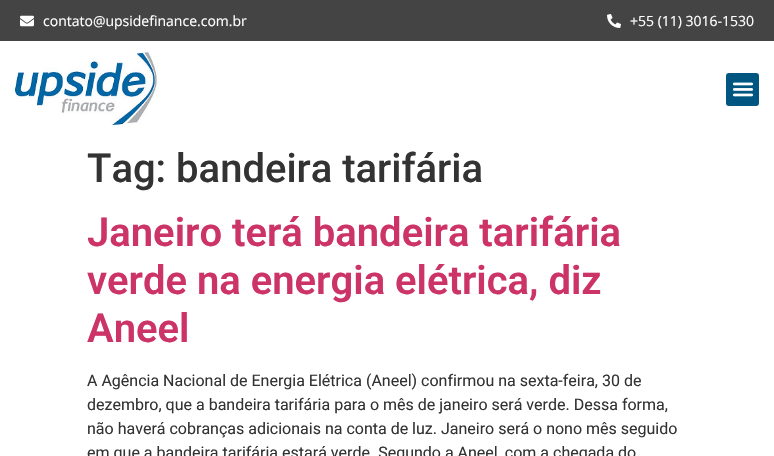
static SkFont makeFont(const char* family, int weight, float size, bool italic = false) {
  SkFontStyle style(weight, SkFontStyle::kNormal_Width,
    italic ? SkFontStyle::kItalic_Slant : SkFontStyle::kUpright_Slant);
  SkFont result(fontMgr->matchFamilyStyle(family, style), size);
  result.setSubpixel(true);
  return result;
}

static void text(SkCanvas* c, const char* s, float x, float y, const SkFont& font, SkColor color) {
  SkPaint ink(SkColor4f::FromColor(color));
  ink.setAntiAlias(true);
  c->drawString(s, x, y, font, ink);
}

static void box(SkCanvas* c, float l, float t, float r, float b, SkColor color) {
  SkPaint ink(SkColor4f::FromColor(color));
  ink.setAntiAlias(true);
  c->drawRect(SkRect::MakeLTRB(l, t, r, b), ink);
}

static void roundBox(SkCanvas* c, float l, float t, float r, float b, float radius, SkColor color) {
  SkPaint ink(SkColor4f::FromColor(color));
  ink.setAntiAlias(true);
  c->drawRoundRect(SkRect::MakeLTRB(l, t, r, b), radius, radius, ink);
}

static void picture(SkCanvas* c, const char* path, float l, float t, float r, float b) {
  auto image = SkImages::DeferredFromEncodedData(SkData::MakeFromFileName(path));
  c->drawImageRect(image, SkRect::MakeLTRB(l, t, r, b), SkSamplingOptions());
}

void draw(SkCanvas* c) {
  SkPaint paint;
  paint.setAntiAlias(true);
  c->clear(0xffffffff);
  box(c, 0, 0, 774, 41, 0xff444444);
  picture(c, "img_01.png", 20, 15, 34, 27);
  SkFont face1 = makeFont("Open Sans", 400, 14);
  text(c, "contato@upsidefinance.com.br", 43, 26, face1, 0xffffffff);
  picture(c, "img_02.png", 607, 14, 621, 28);
  text(c, "+55 (11) 3016-1530", 630, 26, face1, 0xffffffff);
  picture(c, "img_03.png", 11, 51, 158, 125);
  roundBox(c, 726, 73, 759, 106, 3, 0xff005581);
  picture(c, "img_04.png", 732, 82, 754, 97);
  SkFont face2 = makeFont("Roboto", 500, 40);
  text(c, "Tag: bandeira tarifária", 87, 182, face2, 0xff333333);
  SkFont face3 = makeFont("Roboto", 600, 40);
  text(c, "Janeiro terá bandeira tarifária", 87, 246, face3, 0xffcc3366);
  text(c, "verde na energia elétrica, diz", 87, 294, face3, 0xffcc3366);
  text(c, "Aneel", 87, 342, face3, 0xffcc3366);
  SkFont face4 = makeFont("Roboto", 400, 16);
  text(c, "A Agência Nacional de Energia Elétrica (Aneel) confirmou na sexta-feira, 30 de", 87, 386, face4, 0xff333333);
  text(c, "dezembro, que a bandeira tarifária para o mês de janeiro será verde. Dessa forma,", 87, 410, face4, 0xff333333);
  text(c, "não haverá cobranças adicionais na conta de luz. Janeiro será o nono mês seguido", 87, 434, face4, 0xff333333);
  text(c, "em que a bandeira tarifária estará verde. Segundo a Aneel, com a chegada do", 87, 458, face4, 0xff333333);
}
